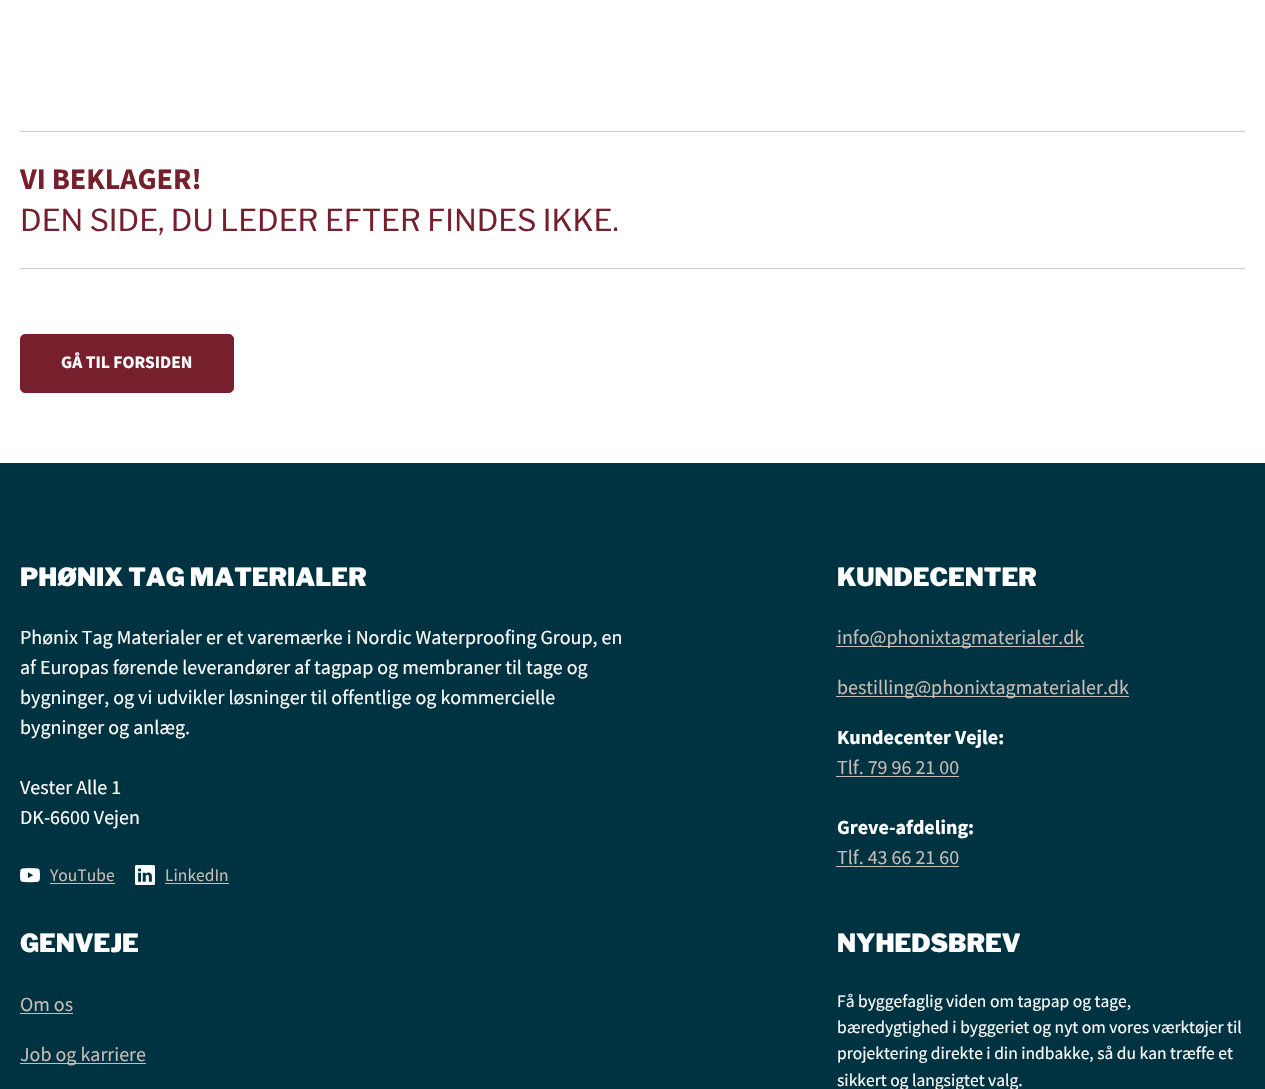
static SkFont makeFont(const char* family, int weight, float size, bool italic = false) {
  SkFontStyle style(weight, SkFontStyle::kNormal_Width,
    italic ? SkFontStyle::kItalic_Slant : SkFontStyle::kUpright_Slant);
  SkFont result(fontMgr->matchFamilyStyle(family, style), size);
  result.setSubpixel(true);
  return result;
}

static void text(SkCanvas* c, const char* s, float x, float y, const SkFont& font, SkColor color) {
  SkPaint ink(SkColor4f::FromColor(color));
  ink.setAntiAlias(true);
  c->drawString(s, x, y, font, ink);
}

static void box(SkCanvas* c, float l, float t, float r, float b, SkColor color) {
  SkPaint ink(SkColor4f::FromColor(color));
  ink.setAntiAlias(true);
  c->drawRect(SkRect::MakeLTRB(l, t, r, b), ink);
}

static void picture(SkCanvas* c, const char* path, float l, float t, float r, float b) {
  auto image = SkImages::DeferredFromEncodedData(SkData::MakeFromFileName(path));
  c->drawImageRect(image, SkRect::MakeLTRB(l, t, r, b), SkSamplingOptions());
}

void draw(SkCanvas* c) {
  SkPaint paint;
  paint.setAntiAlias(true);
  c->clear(0xffffffff);
  box(c, 20, 131, 1245, 132, 0xffcccccc);
  box(c, 20, 268, 1245, 269, 0xffcccccc);
  SkFont face1 = makeFont("Source Sans Pro", 700, 30);
  text(c, "VI BEKLAGER!", 20, 189, face1, 0xff77202d);
  SkFont face2 = makeFont("Libre Franklin", 400, 30);
  text(c, "DEN SIDE, DU LEDER EFTER FINDES IKKE.", 20, 231, face2, 0xff77202d);
  paint.setColor(0xff77202d);
  c->drawRoundRect(SkRect::MakeLTRB(20.5f, 334.5f, 233.5f, 392.5f), 4.5f, 4.5f, paint);
  paint.setStyle(SkPaint::kStroke_Style);
  paint.setStrokeWidth(1);
  c->drawRoundRect(SkRect::MakeLTRB(20.5f, 334.5f, 233.5f, 392.5f), 4.5f, 4.5f, paint);
  SkFont face3 = makeFont("Source Sans Pro", 700, 17.5f);
  text(c, "GÅ TIL FORSIDEN", 61, 368, face3, 0xffffffff);
  box(c, 0, 463, 1265, 1089, 0xff003341);
  SkFont face4 = makeFont("Libre Franklin", 900, 25);
  text(c, "PHØNIX TAG MATERIALER", 20, 586, face4, 0xffffffff);
  SkFont face5 = makeFont("Source Sans Pro", 400, 20);
  text(c, "Phønix Tag Materialer er et varemærke i Nordic Waterproofing Group, en", 20, 644, face5, 0xffffffff);
  text(c, "af Europas førende leverandører af tagpap og membraner til tage og", 20, 674, face5, 0xffffffff);
  text(c, "bygninger, og vi udvikler løsninger til offentlige og kommercielle", 20, 704, face5, 0xffffffff);
  text(c, "bygninger og anlæg.", 20, 734, face5, 0xffffffff);
  text(c, "Vester Alle 1", 20, 794, face5, 0xffffffff);
  text(c, "DK-6600 Vejen", 20, 824, face5, 0xffffffff);
  picture(c, "img_01.png", 20, 868, 40, 883);
  SkFont face6 = makeFont("Source Sans Pro", 400, 17.5f);
  text(c, "YouTube", 50, 881, face6, 0xffc7bdb5);
  box(c, 50, 883, 115, 884, 0xffc7bdb5);
  picture(c, "img_02.png", 135, 865, 155, 885);
  text(c, "LinkedIn", 165, 881, face6, 0xffc7bdb5);
  box(c, 165, 883, 229, 884, 0xffc7bdb5);
  text(c, "KUNDECENTER", 837, 586, face4, 0xffffffff);
  box(c, 836, 646, 1084, 647, 0xffc7bdb5);
  text(c, "info@phonixtagmaterialer.dk", 837, 644, face5, 0xffc7bdb5);
  box(c, 836, 696, 1129, 697, 0xffc7bdb5);
  text(c, "bestilling@phonixtagmaterialer.dk", 837, 694, face5, 0xffc7bdb5);
  SkFont face7 = makeFont("Source Sans Pro", 700, 20);
  text(c, "Kundecenter Vejle:", 837, 744, face7, 0xffffffff);
  text(c, "Tlf. 79 96 21 00", 837, 774, face5, 0xffc7bdb5);
  box(c, 836, 776, 959, 777, 0xffc7bdb5);
  text(c, "Greve-afdeling:", 837, 834, face7, 0xffffffff);
  text(c, "Tlf. 43 66 21 60", 837, 864, face5, 0xffc7bdb5);
  box(c, 836, 866, 959, 867, 0xffc7bdb5);
  text(c, "GENVEJE", 20, 952, face4, 0xffffffff);
  text(c, "Om os", 20, 1011, face5, 0xffc7bdb5);
  box(c, 20, 1013, 73, 1014, 0xffc7bdb5);
  box(c, 20, 1063, 146, 1064, 0xffc7bdb5);
  text(c, "Job og karriere", 20, 1061, face5, 0xffc7bdb5);
  text(c, "NYHEDSBREV", 837, 952, face4, 0xffffffff);
  text(c, "Få byggefaglig viden om tagpap og tage,", 837, 1007, face6, 0xffffffff);
  text(c, "bæredygtighed i byggeriet og nyt om vores værktøjer til", 837, 1033, face6, 0xffffffff);
  text(c, "projektering direkte i din indbakke, så du kan træffe et", 837, 1059, face6, 0xffffffff);
  text(c, "sikkert og langsigtet valg.", 837, 1086, face6, 0xffffffff);
}
